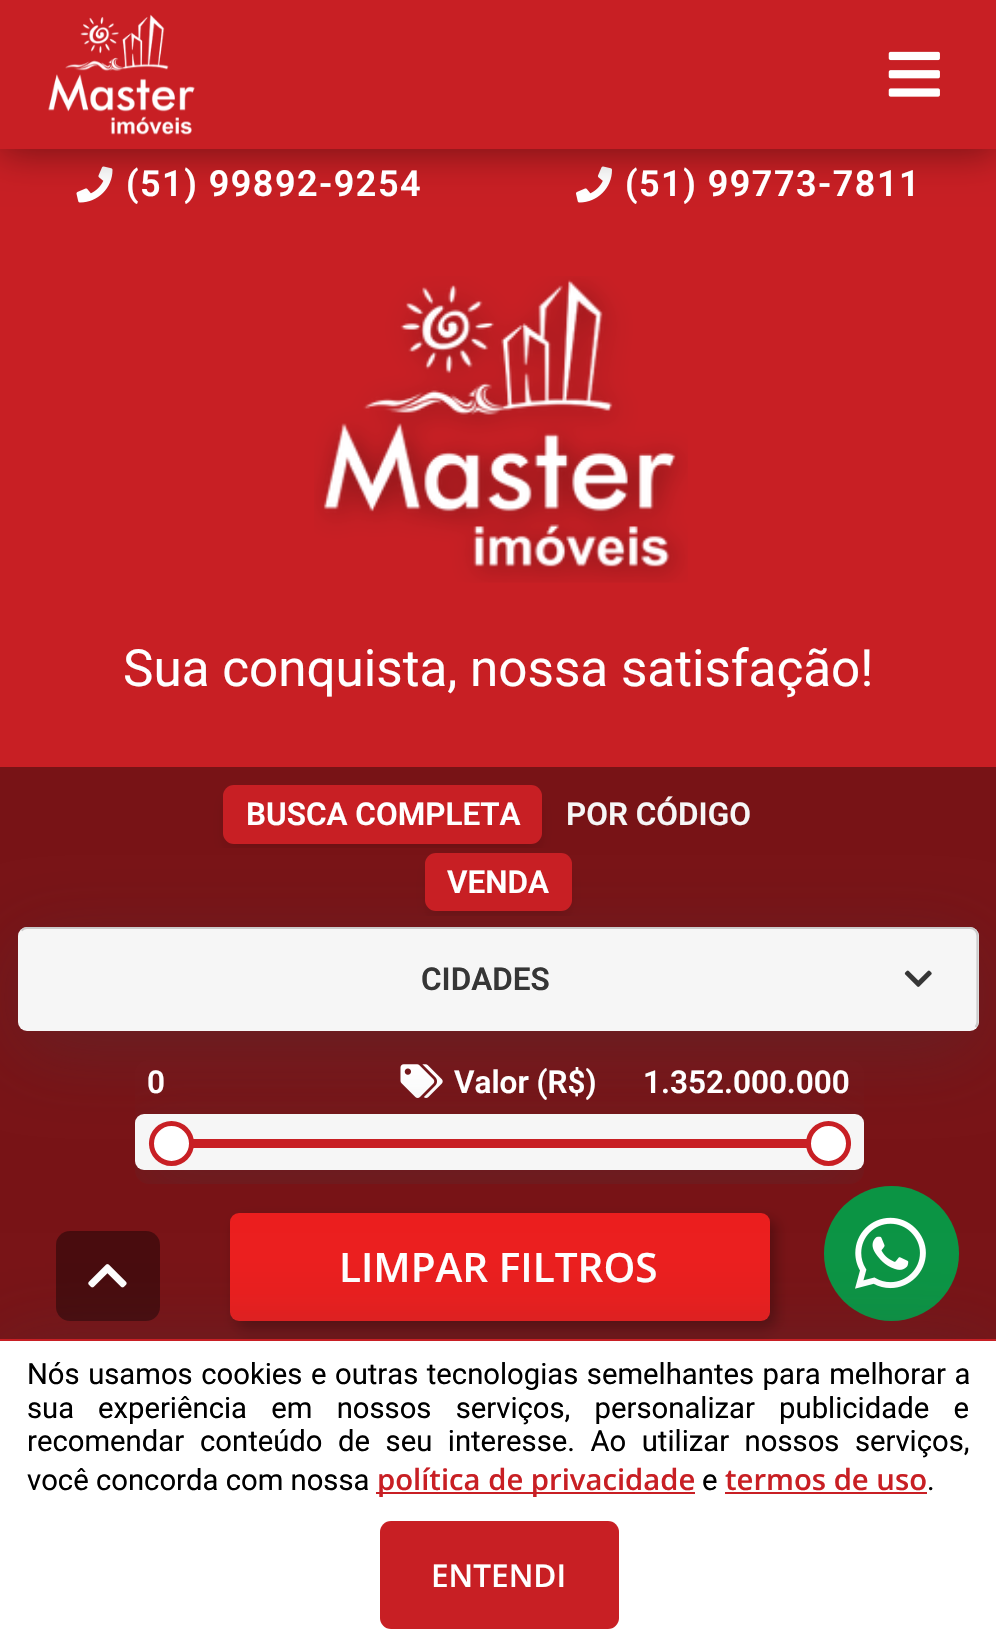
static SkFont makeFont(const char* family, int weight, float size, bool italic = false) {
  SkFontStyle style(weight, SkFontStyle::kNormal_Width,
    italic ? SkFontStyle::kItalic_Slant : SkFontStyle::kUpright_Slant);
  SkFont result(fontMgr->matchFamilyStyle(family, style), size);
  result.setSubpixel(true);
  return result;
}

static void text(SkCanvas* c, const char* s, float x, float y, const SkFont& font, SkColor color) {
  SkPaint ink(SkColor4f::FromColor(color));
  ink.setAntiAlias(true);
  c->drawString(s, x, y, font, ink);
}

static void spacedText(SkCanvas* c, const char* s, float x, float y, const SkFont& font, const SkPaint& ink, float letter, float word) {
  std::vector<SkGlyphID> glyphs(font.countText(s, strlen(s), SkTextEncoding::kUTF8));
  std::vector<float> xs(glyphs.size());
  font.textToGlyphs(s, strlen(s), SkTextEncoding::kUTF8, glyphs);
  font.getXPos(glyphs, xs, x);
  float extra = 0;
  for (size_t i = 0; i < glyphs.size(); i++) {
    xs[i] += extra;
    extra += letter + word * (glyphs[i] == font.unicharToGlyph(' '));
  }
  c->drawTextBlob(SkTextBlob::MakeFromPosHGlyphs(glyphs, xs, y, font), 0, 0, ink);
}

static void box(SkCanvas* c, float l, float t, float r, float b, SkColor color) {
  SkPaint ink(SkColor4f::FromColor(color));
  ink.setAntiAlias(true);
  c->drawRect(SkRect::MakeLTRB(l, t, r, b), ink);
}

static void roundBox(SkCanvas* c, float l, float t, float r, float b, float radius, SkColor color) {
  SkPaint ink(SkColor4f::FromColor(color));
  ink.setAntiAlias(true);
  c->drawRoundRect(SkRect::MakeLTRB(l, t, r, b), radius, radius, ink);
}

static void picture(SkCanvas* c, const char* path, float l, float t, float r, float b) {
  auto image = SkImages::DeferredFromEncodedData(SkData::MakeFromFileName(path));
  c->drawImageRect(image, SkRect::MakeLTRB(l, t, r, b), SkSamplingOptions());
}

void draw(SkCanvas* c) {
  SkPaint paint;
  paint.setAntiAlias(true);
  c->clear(0xffc81f24);
  picture(c, "img_03.png", 76, 166, 113, 203);
  picture(c, "img_04.png", 576, 166, 612, 203);
  paint.setColor(0x66000000);
  paint.setMaskFilter(SkMaskFilter::MakeBlur(kNormal_SkBlurStyle, 18));
  c->drawRect(SkRect::MakeLTRB(0, 5, 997, 153), paint);
  paint.setMaskFilter(nullptr);
  box(c, 0, 0, 996, 149, 0xffc81f24);
  picture(c, "img_01.png", 48, 14, 195, 135);
  picture(c, "img_02.png", 888, 51, 940, 97);
  SkFont face1 = makeFont("Roboto", 600, 36);
  paint.setColor(0xffffffff);
  spacedText(c, "(51) 99892-9254", 126, 196, face1, paint, 1.5f, 0);
  spacedText(c, "(51) 99773-7811", 625, 196, face1, paint, 1.5f, 0);
  picture(c, "img_05.png", 314, 276, 688, 583);
  SkFont face2 = makeFont("Roboto", 400, 51.2f);
  text(c, "Sua conquista, nossa satisfação!", 123, 686, face2, 0xffffffff);
  box(c, 0, 767, 996, 1339, 0xff781316);
  c->save();
  c->clipRect(SkRect::MakeLTRB(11, 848, 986, 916));
  paint.setColor(0x1a000000);
  paint.setMaskFilter(SkMaskFilter::MakeBlur(kNormal_SkBlurStyle, 7));
  c->drawRoundRect(SkRect::MakeLTRB(428, 864, 569, 918), 9, 9, paint);
  paint.setMaskFilter(nullptr);
  c->restore();
  paint.setColor(0x4d3b4047);
  paint.setMaskFilter(SkMaskFilter::MakeBlur(kNormal_SkBlurStyle, 38));
  c->drawRoundRect(SkRect::MakeLTRB(23, 945, 974, 1049), 9, 9, paint);
  paint.setMaskFilter(nullptr);
  roundBox(c, 425, 853, 572, 911, 11, 0xffc81f24);
  c->save();
  c->clipRect(SkRect::MakeLTRB(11, 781, 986, 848));
  paint.setColor(0x1a000000);
  paint.setMaskFilter(SkMaskFilter::MakeBlur(kNormal_SkBlurStyle, 7));
  c->drawRoundRect(SkRect::MakeLTRB(225, 797, 540, 851), 9, 9, paint);
  paint.setMaskFilter(nullptr);
  c->restore();
  roundBox(c, 223, 785, 542, 844, 11, 0xffc81f24);
  SkFont face3 = makeFont("Roboto", 600, 31.5f);
  text(c, "BUSCA COMPLETA", 246, 825, face3, 0xffffffff);
  text(c, "POR CÓDIGO", 566, 825, face3, 0xfff6f6f6);
  text(c, "VENDA", 447, 893, face3, 0xffffffff);
  roundBox(c, 18, 927, 979, 1031, 9, 0xfff6f6f6);
  paint.setStyle(SkPaint::kStroke_Style);
  paint.setStrokeWidth(2.2f);
  paint.setColor(0xffcccccc);
  c->drawPath(SkPathBuilder().moveTo(21.5f, 930.5f).cubicTo(23, 929, 25, 928, 27, 928).lineTo(970, 928).cubicTo(972, 928, 974, 929, 975.5f, 930.5f).cubicTo(977, 932, 977.5f, 934, 977.5f, 936).lineTo(977.5f, 1021.5f).cubicTo(977.5f, 1023.5f, 977, 1025.5f, 975.5f, 1027).detach(), paint);
  text(c, "CIDADES", 421, 990, face3, 0xff363636);
  picture(c, "img_06.png", 904, 970, 932, 987);
  picture(c, "img_07.png", 400, 1064, 443, 1098);
  paint.setStyle(SkPaint::kFill_Style);
  paint.setColor(0x4d000000);
  paint.setMaskFilter(SkMaskFilter::MakeBlur(kNormal_SkBlurStyle, 7));
  c->drawRoundRect(SkRect::MakeLTRB(236, 1220, 776, 1328), 9, 9, paint);
  paint.setMaskFilter(nullptr);
  roundBox(c, 230, 1213, 770, 1321, 9, 0xffeb1e1e);
  c->save();
  c->clipPath(SkPathBuilder().moveTo(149, 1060).lineTo(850, 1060).cubicTo(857.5f, 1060, 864, 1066.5f, 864, 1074).lineTo(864, 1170).cubicTo(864, 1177.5f, 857.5f, 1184, 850, 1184).lineTo(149, 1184).cubicTo(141.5f, 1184, 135, 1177.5f, 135, 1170).lineTo(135, 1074).cubicTo(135, 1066.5f, 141.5f, 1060, 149, 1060).close().detach(), true);
  paint.setColor(0x4d3b4047);
  paint.setMaskFilter(SkMaskFilter::MakeBlur(kNormal_SkBlurStyle, 31.5f));
  c->drawRoundRect(SkRect::MakeLTRB(135, 1132, 864, 1188), 9, 9, paint);
  paint.setMaskFilter(nullptr);
  c->restore();
  roundBox(c, 135, 1114, 864, 1170, 9, 0xfff6f6f6);
  roundBox(c, 149, 1139, 851, 1148, 4.5f, 0xffc81f24);
  paint.setColor(0xffffffff);
  c->drawCircle(828.5f, 1143.5f, 20, paint);
  paint.setStyle(SkPaint::kStroke_Style);
  paint.setStrokeWidth(5);
  paint.setColor(0xffc81f24);
  c->drawCircle(828.5f, 1143.5f, 20, paint);
  paint.setStyle(SkPaint::kFill_Style);
  paint.setColor(0xffffffff);
  c->drawCircle(171.5f, 1143.5f, 20, paint);
  paint.setStyle(SkPaint::kStroke_Style);
  paint.setColor(0xffc81f24);
  c->drawCircle(171.5f, 1143.5f, 20, paint);
  text(c, "0", 147, 1093, face3, 0xffffffff);
  text(c, "Valor (R$)", 454, 1093, face3, 0xffffffff);
  text(c, "1.352.000.000", 643, 1093, face3, 0xffffffff);
  SkFont face4 = makeFont("Open Sans", 600, 40.5f);
  text(c, "LIMPAR FILTROS", 339, 1282, face4, 0xffffffff);
  paint.setStyle(SkPaint::kFill_Style);
  paint.setColor(0x4d000000);
  paint.setMaskFilter(SkMaskFilter::MakeBlur(kNormal_SkBlurStyle, 7));
  c->drawRoundRect(SkRect::MakeLTRB(236, 1346, 776, 1454), 9, 9, paint);
  paint.setMaskFilter(nullptr);
  roundBox(c, 56, 1231, 160, 1321, 14, 0xff480b0d);
  picture(c, "img_08.png", 88, 1264, 127, 1288);
  paint.setColor(0xff0b9444);
  c->drawCircle(891.5f, 1253.5f, 67.5f, paint);
  picture(c, "img_09.png", 855, 1217, 926, 1289);
  paint.setColor(0x4d3b4047);
  paint.setMaskFilter(SkMaskFilter::MakeBlur(kNormal_SkBlurStyle, 38));
  c->drawRect(SkRect::MakeLTRB(0, 1346, 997, 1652), paint);
  paint.setMaskFilter(nullptr);
  box(c, 0, 1341, 996, 1644, 0xffffffff);
  box(c, 0, 1339, 996, 1341, 0xffc81f24);
  SkFont face5 = makeFont("Roboto", 400, 29.25f);
  paint.setColor(0xff000000);
  spacedText(c, "Nós usamos cookies e outras tecnologias semelhantes para melhorar a", 27, 1384, face5, paint, 0, 1.25f);
  text(c, "sua", 27, 1418, face5, 0xff000000);
  spacedText(c, "experiência em nossos serviços, personalizar publicidade e", 98, 1418, face5, paint, 0, 17);
  text(c, "recomendar", 27, 1451, face5, 0xff000000);
  spacedText(c, "conteúdo de seu interesse. Ao utilizar nossos serviços,", 200, 1451, face5, paint, 0, 8.25f);
  text(c, "você concorda com nossa", 27, 1490, face5, 0xff000000);
  box(c, 376, 1492, 695, 1494, 0xffc81f24);
  SkFont face6 = makeFont("Open Sans", 600, 29.25f);
  text(c, "política de privacidade", 377, 1490, face6, 0xffc81f24);
  text(c, "e", 702, 1490, face5, 0xff000000);
  text(c, "termos de uso", 725, 1490, face6, 0xffc81f24);
  box(c, 725, 1492, 927, 1494, 0xffc81f24);
  text(c, ".", 927, 1490, face5, 0xff000000);
  roundBox(c, 380, 1521, 619, 1629, 11, 0xffc81f24);
  SkFont face7 = makeFont("Open Sans", 600, 31.5f);
  text(c, "ENTENDI", 431, 1587, face7, 0xffffffff);
}
